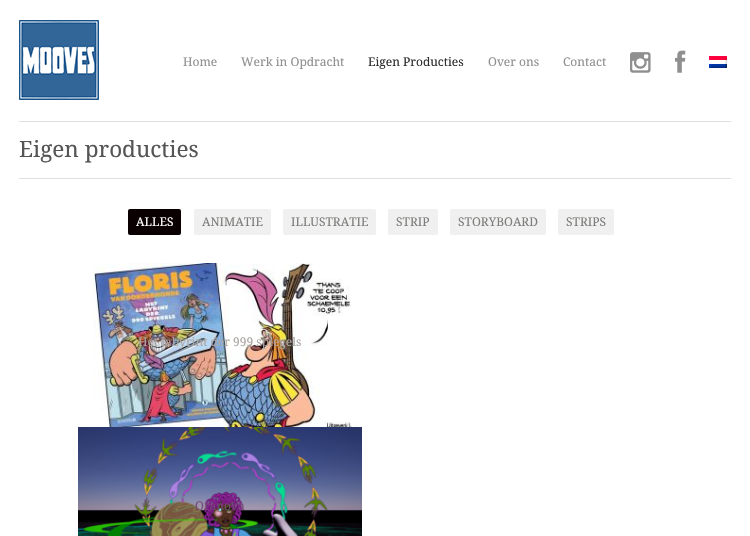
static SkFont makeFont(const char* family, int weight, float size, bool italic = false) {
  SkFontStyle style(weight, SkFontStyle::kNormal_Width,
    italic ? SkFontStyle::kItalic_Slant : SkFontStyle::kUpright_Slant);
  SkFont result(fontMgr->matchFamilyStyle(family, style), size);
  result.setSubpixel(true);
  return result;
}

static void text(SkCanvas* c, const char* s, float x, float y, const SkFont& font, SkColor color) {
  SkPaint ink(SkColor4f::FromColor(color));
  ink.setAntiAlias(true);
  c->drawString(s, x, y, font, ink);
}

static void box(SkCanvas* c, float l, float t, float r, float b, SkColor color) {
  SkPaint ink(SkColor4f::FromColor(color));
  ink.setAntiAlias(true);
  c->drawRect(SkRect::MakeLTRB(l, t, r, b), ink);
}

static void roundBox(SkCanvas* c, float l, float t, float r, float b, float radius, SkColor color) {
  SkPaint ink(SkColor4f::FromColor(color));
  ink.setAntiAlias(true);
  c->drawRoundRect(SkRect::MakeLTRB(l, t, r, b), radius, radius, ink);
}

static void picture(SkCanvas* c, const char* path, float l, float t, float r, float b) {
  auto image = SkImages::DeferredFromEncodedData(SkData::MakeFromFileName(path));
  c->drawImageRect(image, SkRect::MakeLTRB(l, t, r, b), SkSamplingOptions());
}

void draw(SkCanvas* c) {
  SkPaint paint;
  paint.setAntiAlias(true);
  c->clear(0xffffffff);
  picture(c, "img_01.png", 19, 20, 99, 100);
  SkFont face1 = makeFont("Droid Serif", 400, 12);
  text(c, "Home", 183, 66, face1, 0xff8f8f8f);
  text(c, "Werk in Opdracht", 241, 66, face1, 0xff8f8f8f);
  text(c, "Eigen Producties", 368, 66, face1, 0xff2e2e2e);
  text(c, "Over ons", 488, 66, face1, 0xff8f8f8f);
  text(c, "Contact", 563, 66, face1, 0xff8f8f8f);
  picture(c, "img_02.png", 630, 52, 651, 73);
  picture(c, "img_03.png", 675, 50, 686, 73);
  picture(c, "img_04.png", 709, 56, 727, 68);
  box(c, 19, 121, 731, 122, 0xffdfdfde);
  box(c, 19, 178, 731, 179, 0xffdfdfde);
  SkFont face2 = makeFont("Droid Serif", 400, 22.5f);
  text(c, "Eigen producties", 19, 157, face2, 0xff555555);
  roundBox(c, 128, 209, 181, 235, 2, 0xff0a0002);
  text(c, "ALLES", 136, 226, face1, 0xffffffff);
  roundBox(c, 194, 209, 271, 235, 2, 0xfff0f0f0);
  text(c, "ANIMATIE", 202, 226, face1, 0xff7d7d7b);
  roundBox(c, 283, 209, 376, 235, 2, 0xfff0f0f0);
  text(c, "ILLUSTRATIE", 291, 226, face1, 0xff7d7d7b);
  roundBox(c, 388, 209, 438, 235, 2, 0xfff0f0f0);
  text(c, "STRIP", 396, 226, face1, 0xff7d7d7b);
  roundBox(c, 450, 209, 546, 235, 2, 0xfff0f0f0);
  text(c, "STORYBOARD", 458, 226, face1, 0xff7d7d7b);
  roundBox(c, 558, 209, 614, 235, 2, 0xfff0f0f0);
  text(c, "STRIPS", 566, 226, face1, 0xff7d7d7b);
  picture(c, "img_05.png", 78, 263, 362, 427);
  text(c, "Het labyrint der 999 spiegels", 138, 346, face1, 0xffada6a4);
  picture(c, "img_06.png", 78, 427, 362, 536);
  text(c, "Oranova", 195, 510, face1, 0xff774876);
}
